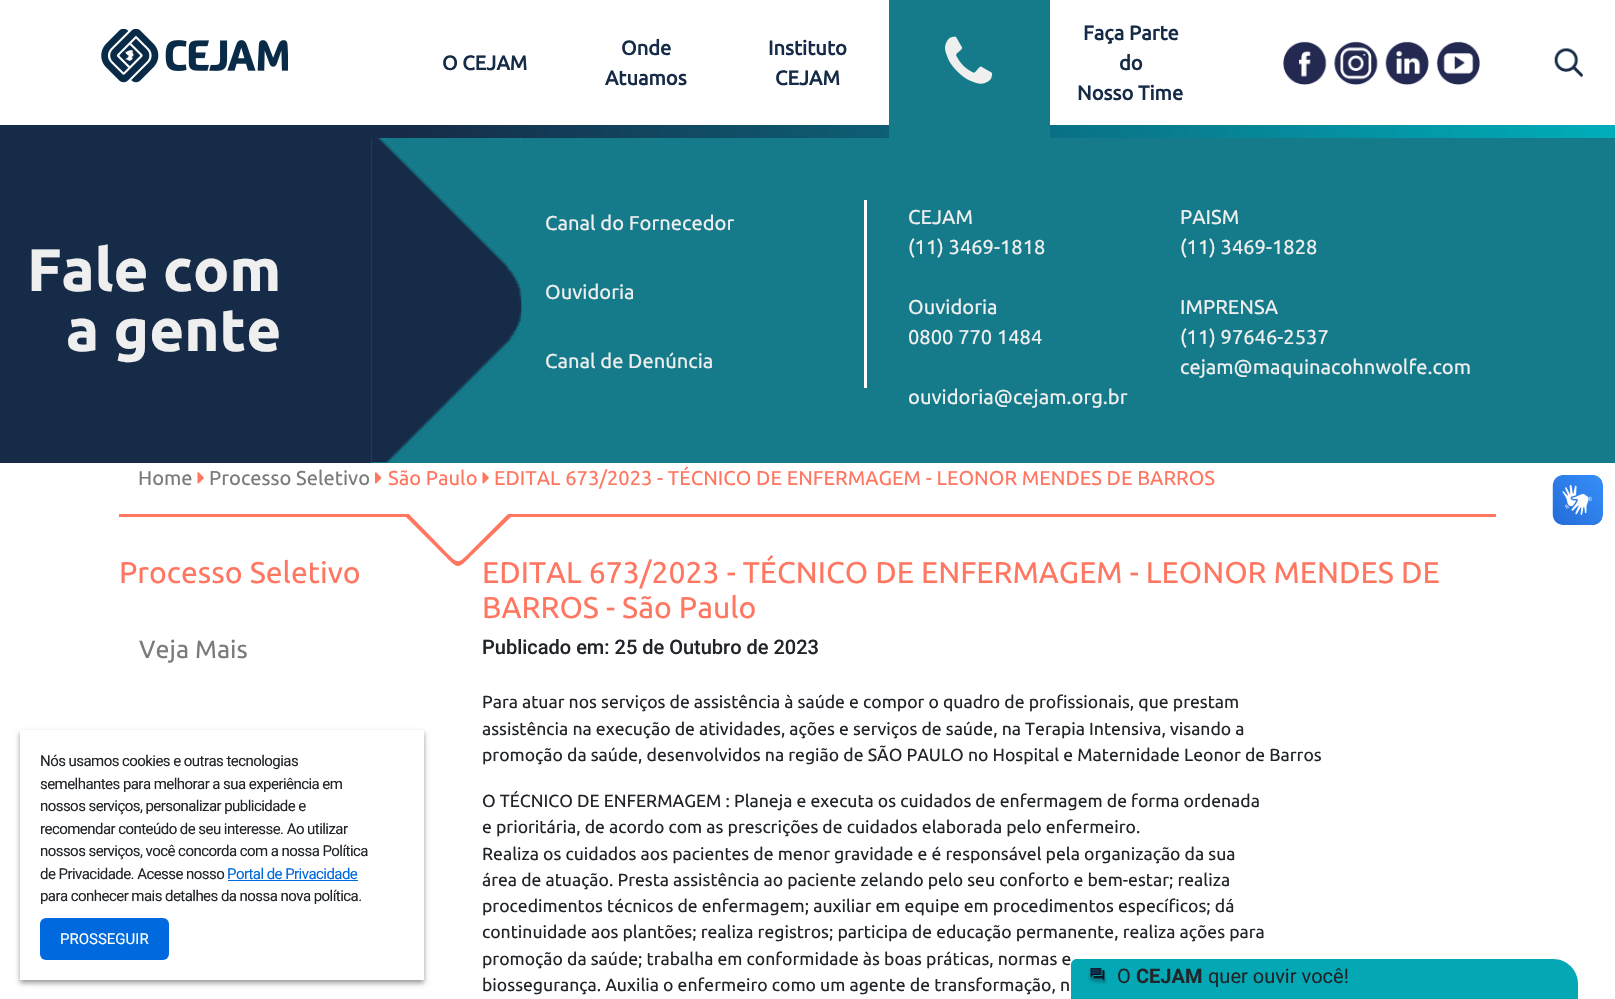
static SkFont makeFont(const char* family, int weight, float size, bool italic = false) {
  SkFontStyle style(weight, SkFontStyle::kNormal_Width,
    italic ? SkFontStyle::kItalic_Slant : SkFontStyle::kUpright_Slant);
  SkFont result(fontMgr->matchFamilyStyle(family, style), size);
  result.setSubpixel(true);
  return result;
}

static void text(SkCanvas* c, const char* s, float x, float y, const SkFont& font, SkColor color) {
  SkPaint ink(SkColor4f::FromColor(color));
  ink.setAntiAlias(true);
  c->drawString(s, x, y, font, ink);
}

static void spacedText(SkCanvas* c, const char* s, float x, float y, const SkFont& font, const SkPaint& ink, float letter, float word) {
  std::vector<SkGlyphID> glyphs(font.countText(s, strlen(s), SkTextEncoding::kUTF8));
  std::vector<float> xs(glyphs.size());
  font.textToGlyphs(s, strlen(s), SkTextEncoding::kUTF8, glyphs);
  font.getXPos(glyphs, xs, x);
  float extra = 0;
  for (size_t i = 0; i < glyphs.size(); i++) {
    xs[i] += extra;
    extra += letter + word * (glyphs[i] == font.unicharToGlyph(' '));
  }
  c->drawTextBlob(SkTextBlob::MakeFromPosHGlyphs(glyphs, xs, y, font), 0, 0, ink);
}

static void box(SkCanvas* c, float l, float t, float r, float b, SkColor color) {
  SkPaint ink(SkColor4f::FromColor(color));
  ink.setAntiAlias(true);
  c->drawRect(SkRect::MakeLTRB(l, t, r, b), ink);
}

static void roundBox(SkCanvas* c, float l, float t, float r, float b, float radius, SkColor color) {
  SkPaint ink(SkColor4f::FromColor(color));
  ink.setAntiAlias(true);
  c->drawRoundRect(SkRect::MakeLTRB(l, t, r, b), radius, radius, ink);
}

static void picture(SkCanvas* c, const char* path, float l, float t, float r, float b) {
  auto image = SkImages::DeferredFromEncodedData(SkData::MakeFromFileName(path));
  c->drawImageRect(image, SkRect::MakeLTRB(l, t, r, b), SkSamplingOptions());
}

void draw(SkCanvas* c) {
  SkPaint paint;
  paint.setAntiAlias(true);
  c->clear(0xffffffff);
  {
    const SkColor colors[] = {0xff162b47, 0xff00adba};
    const float stops[] = {0.25f, 1};
    const SkPoint ends[] = {{0, 69}, {1615, 69}};
    paint.setShader(SkGradientShader::MakeLinear(ends, colors, stops, 2, SkTileMode::kClamp));
    paint.setAlpha(255);
  }
  c->drawRect(SkRect::MakeLTRB(0, 125, 1615, 138), paint);
  SkFont face1 = makeFont("Ubuntu", 700, 20);
  text(c, "O CEJAM", 442, 70, face1, 0xff162b47);
  text(c, "Onde", 621, 55, face1, 0xff162b47);
  text(c, "Atuamos", 605, 85, face1, 0xff162b47);
  text(c, "Instituto", 768, 55, face1, 0xff162b47);
  text(c, "CEJAM", 775, 85, face1, 0xff162b47);
  text(c, "Faça Parte", 1083, 40, face1, 0xff162b47);
  text(c, "do", 1119, 70, face1, 0xff162b47);
  text(c, "Nosso Time", 1077, 100, face1, 0xff162b47);
  box(c, 889, 0, 1050, 138, 0xff157b8b);
  picture(c, "img_01.png", 945, 36, 993, 84);
  box(c, 371, 138, 1615, 463, 0xff157b8b);
  box(c, 0, 138, 371, 463, 0xff162b47);
  SkFont face2 = makeFont("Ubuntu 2", 700, 60);
  text(c, "Fale com", 27, 291, face2, 0xffefefef);
  text(c, "a gente", 66, 351, face2, 0xffefefef);
  picture(c, "img_02.png", 371, 137, 522, 463);
  box(c, 864, 200, 867, 388, 0xffffffff);
  SkFont face3 = makeFont("Ubuntu", 400, 20);
  text(c, "Canal do Fornecedor", 545, 230, face3, 0xffefefef);
  text(c, "Ouvidoria", 545, 299, face3, 0xffefefef);
  text(c, "Canal de Denúncia", 545, 368, face3, 0xffefefef);
  text(c, "CEJAM", 908, 224, face3, 0xffefefef);
  text(c, "(11) 3469-1818", 908, 254, face3, 0xffefefef);
  text(c, "Ouvidoria", 908, 314, face3, 0xffefefef);
  text(c, "0800 770 1484", 908, 344, face3, 0xffefefef);
  text(c, "ouvidoria@cejam.org.br", 908, 404, face3, 0xffefefef);
  text(c, "PAISM", 1180, 224, face3, 0xffefefef);
  text(c, "(11) 3469-1828", 1180, 254, face3, 0xffefefef);
  text(c, "IMPRENSA", 1180, 314, face3, 0xffefefef);
  text(c, "(11) 97646‑2537", 1180, 344, face3, 0xffefefef);
  text(c, "cejam@maquinacohnwolfe.com", 1180, 374, face3, 0xffefefef);
  picture(c, "img_03.png", 101, 29, 288, 83);
  picture(c, "img_04.png", 1283, 41, 1327, 85);
  picture(c, "img_05.png", 1334, 41, 1378, 85);
  picture(c, "img_06.png", 1385, 41, 1429, 85);
  picture(c, "img_07.png", 1436, 41, 1480, 85);
  picture(c, "img_08.png", 1554, 48, 1583, 77);
  box(c, 119, 514, 1496, 517, 0xffff7661);
  text(c, "Home", 138, 485, face3, 0xff7b7b7b);
  picture(c, "img_09.png", 197, 472, 204, 484);
  text(c, "Processo Seletivo", 209, 485, face3, 0xff7b7b7b);
  picture(c, "img_10.png", 375, 472, 382, 484);
  text(c, "São Paulo", 388, 485, face3, 0xffff7661);
  picture(c, "img_09.png", 482, 472, 489, 484);
  text(c, "EDITAL 673/2023 - TÉCNICO DE ENFERMAGEM - LEONOR MENDES DE BARROS", 494, 485, face3, 0xffff7661);
  c->save();
  c->clipRect(SkRect::MakeLTRB(394, 514, 523, 639));
  paint.setShader(nullptr);
  paint.setColor(0xffff7661);
  c->drawPath(SkPathBuilder().moveTo(520, 496).cubicTo(528, 504, 515, 512, 511, 517).lineTo(473, 554).cubicTo(457, 570, 459, 570, 443, 554).lineTo(396, 507).cubicTo(391, 503, 394, 494, 401, 494).lineTo(516, 494).cubicTo(517, 494, 519, 495, 520, 496).close().detach(), paint);
  c->restore();
  SkFont face4 = makeFont("Ubuntu", 400, 30);
  text(c, "EDITAL 673/2023 - TÉCNICO DE ENFERMAGEM - LEONOR MENDES DE", 482, 583, face4, 0xffff7661);
  c->save();
  c->clipRect(SkRect::MakeLTRB(394, 514, 523, 639));
  paint.setColor(0xffffffff);
  c->drawPath(SkPathBuilder().moveTo(517, 495).cubicTo(524, 502, 512, 510, 508, 514).lineTo(472, 550).cubicTo(457, 565, 459, 565, 444, 550).lineTo(400, 505).cubicTo(395, 501, 398, 493, 404, 493).lineTo(513, 493).close().detach(), paint);
  c->restore();
  text(c, "Processo Seletivo", 119, 583, face4, 0xffff7661);
  SkFont face5 = makeFont("Ubuntu", 400, 25);
  text(c, "Veja Mais", 139, 658, face5, 0xff7b7b7b);
  text(c, "BARROS - São Paulo", 482, 618, face4, 0xffff7661);
  SkFont face6 = makeFont("Roboto", 500, 20);
  text(c, "Publicado em: 25 de Outubro de 2023", 482, 654, face6, 0xff212529);
  SkFont face7 = makeFont("Ubuntu", 400, 17.5f);
  text(c, "Para atuar nos serviços de assistência à saúde e compor o quadro de profissionais, que prestam", 482, 708, face7, 0xff212529);
  text(c, "assistência na execução de atividades, ações e serviços de saúde, na Terapia Intensiva, visando a", 482, 735, face7, 0xff212529);
  text(c, "promoção da saúde, desenvolvidos na região de SÃO PAULO no Hospital e Maternidade Leonor de Barros", 482, 761, face7, 0xff212529);
  text(c, "O TÉCNICO DE ENFERMAGEM : Planeja e executa os cuidados de enfermagem de forma ordenada", 482, 807, face7, 0xff212529);
  text(c, "e prioritária, de acordo com as prescrições de cuidados elaborada pelo enfermeiro.", 482, 833, face7, 0xff212529);
  text(c, "Realiza os cuidados aos pacientes de menor gravidade e é responsável pela organização da sua", 482, 860, face7, 0xff212529);
  text(c, "área de atuação. Presta assistência ao paciente zelando pelo seu conforto e bem-estar; realiza", 482, 886, face7, 0xff212529);
  text(c, "procedimentos técnicos de enfermagem; auxiliar em equipe em procedimentos específicos; dá", 482, 912, face7, 0xff212529);
  text(c, "continuidade aos plantões; realiza registros; participa de educação permanente, realiza ações para", 482, 938, face7, 0xff212529);
  text(c, "promoção da saúde; trabalha em conformidade às boas práticas, normas e", 482, 965, face7, 0xff212529);
  text(c, "biossegurança. Auxilia o enfermeiro como um agente de transformação, n", 482, 991, face7, 0xff212529);
  picture(c, "img_11.png", 1552, 475, 1603, 525);
  picture(c, "img_12.png", 1553, 475, 1603, 525);
  paint.setColor(0x66000000);
  paint.setMaskFilter(SkMaskFilter::MakeBlur(kNormal_SkBlurStyle, 2.5f));
  c->drawRect(SkRect::MakeLTRB(20, 733, 424, 983), paint);
  paint.setMaskFilter(nullptr);
  box(c, 20, 730, 424, 980, 0xffffffff);
  SkFont face8 = makeFont("Roboto", 400, 15);
  paint.setColor(0xff212529);
  spacedText(c, "Nós usamos cookies e outras tecnologias", 40, 766, face8, paint, -0.55f, 0);
  spacedText(c, "semelhantes para melhorar a sua experiência em", 40, 789, face8, paint, -0.55f, 0);
  spacedText(c, "nossos serviços, personalizar publicidade e", 40, 811, face8, paint, -0.55f, 0);
  spacedText(c, "recomendar conteúdo de seu interesse. Ao utilizar", 40, 834, face8, paint, -0.55f, 0);
  spacedText(c, "nossos serviços, você concorda com a nossa Política", 40, 856, face8, paint, -0.55f, 0);
  spacedText(c, "de Privacidade. Acesse nosso", 40, 879, face8, paint, -0.55f, 0);
  paint.setColor(0xff0069de);
  spacedText(c, "Portal de Privacidade", 227, 879, face8, paint, -0.55f, 0);
  box(c, 228, 880, 358, 881, 0xff0069de);
  paint.setColor(0xff212529);
  spacedText(c, "para conhecer mais detalhes da nossa nova política.", 40, 901, face8, paint, -0.55f, 0);
  roundBox(c, 40, 918, 169, 960, 6, 0xff0069de);
  text(c, "PROSSEGUIR", 60, 944, face8, 0xffffffff);
  paint.setColor(0xff04a8b4);
  c->drawPath(SkPathBuilder().moveTo(1077, 959).lineTo(1553, 959).cubicTo(1567, 959, 1578, 970, 1578, 984).lineTo(1578, 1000).lineTo(1071, 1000).lineTo(1071, 965).cubicTo(1071, 961.5f, 1073.5f, 959, 1077, 959).close().detach(), paint);
  picture(c, "img_13.png", 1088, 968, 1107, 985);
  SkFont face9 = makeFont("Roboto", 400, 20);
  text(c, "O", 1117, 983, face9, 0xff212529);
  SkFont face10 = makeFont("Roboto", 700, 20);
  text(c, "CEJAM", 1136, 983, face10, 0xff212529);
  text(c, "quer ouvir você!", 1208, 983, face9, 0xff212529);
}
